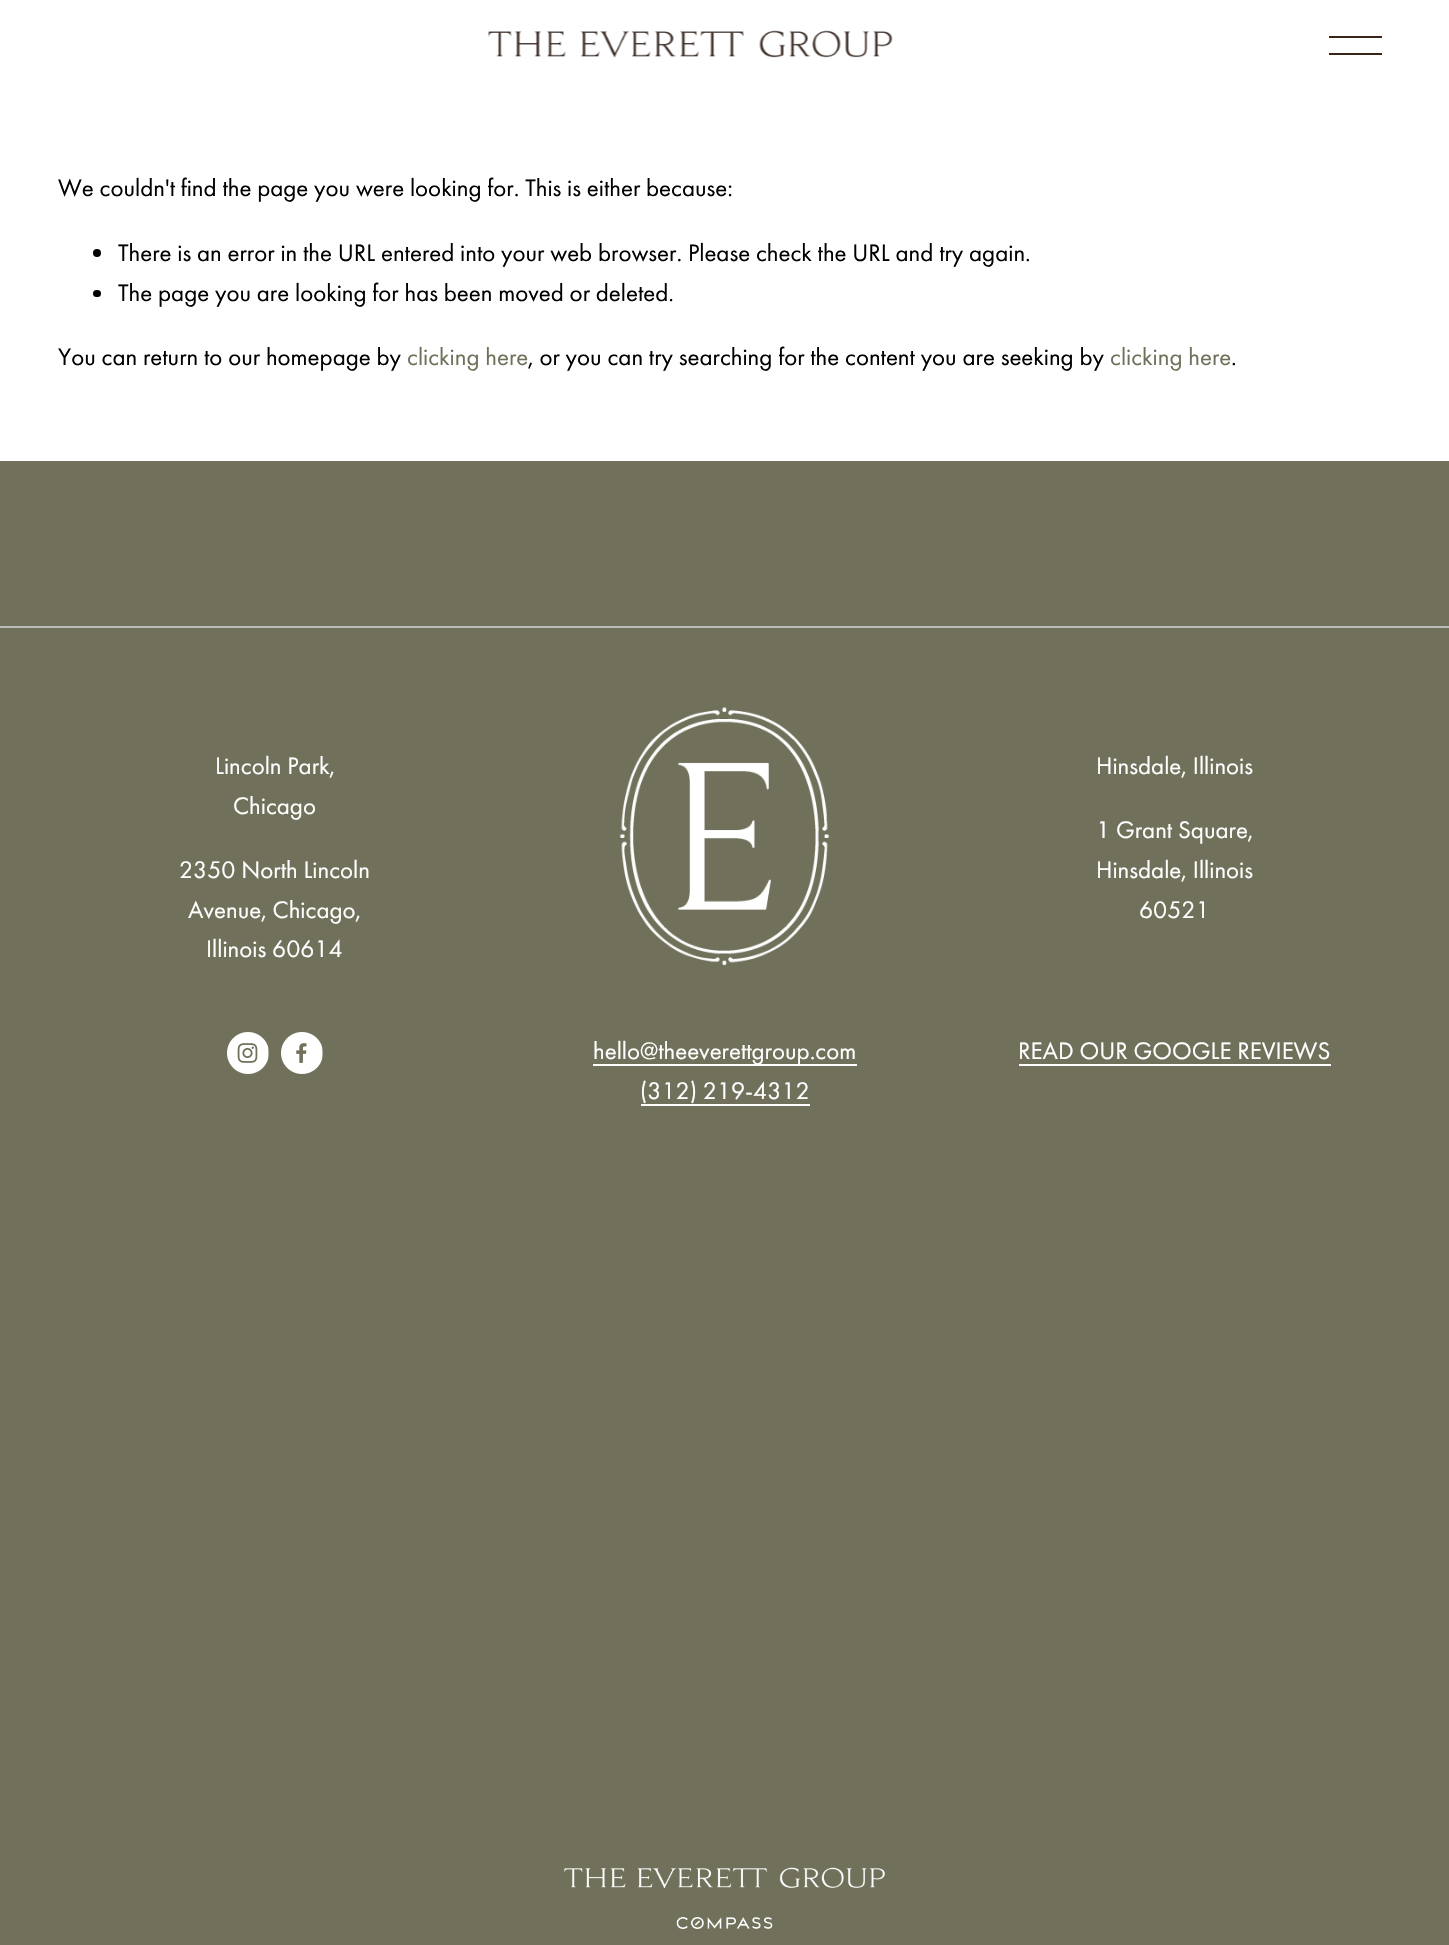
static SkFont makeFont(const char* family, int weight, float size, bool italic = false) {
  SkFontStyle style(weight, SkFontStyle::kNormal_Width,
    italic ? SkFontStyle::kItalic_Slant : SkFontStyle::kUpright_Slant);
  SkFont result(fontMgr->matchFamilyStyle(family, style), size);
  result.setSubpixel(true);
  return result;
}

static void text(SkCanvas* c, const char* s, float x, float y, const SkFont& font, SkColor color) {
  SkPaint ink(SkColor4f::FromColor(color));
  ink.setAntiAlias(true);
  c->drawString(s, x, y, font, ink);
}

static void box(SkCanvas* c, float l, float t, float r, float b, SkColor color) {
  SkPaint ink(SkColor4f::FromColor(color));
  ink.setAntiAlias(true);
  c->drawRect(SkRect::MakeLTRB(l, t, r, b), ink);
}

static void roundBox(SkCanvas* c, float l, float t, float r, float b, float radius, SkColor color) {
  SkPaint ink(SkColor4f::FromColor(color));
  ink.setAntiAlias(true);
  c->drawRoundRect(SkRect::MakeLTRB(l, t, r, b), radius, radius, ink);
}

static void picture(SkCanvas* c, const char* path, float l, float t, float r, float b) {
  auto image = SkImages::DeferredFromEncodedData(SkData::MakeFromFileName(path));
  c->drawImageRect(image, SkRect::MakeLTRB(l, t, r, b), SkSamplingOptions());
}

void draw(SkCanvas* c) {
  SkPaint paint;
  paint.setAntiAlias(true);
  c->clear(0xffffffff);
  picture(c, "img_01.png", 488, 30, 893, 58);
  box(c, 1329, 36, 1382, 38, 0xff3a2318);
  box(c, 1329, 53, 1382, 55, 0xff3a2318);
  SkFont face1 = makeFont("Futura PT", 400, 24.85f);
  text(c, "We couldn't find the page you were looking for. This is either because:", 58, 196, face1, 0xff000000);
  paint.setColor(0xff000000);
  c->drawCircle(97, 253, 4, paint);
  text(c, "There is an error in the URL entered into your web browser. Please check the URL and try again.", 118, 261, face1, 0xff000000);
  roundBox(c, 93, 290, 101, 297, 3.5f, 0xff000000);
  text(c, "The page you are looking for has been moved or deleted.", 118, 301, face1, 0xff000000);
  text(c, "You can return to our homepage by", 58, 365, face1, 0xff000000);
  text(c, "clicking here", 407, 365, face1, 0xff71715b);
  text(c, ", or you can try searching for the", 528, 365, face1, 0xff000000);
  text(c, "content you are seeking by", 845, 365, face1, 0xff000000);
  text(c, "clicking here", 1110, 365, face1, 0xff71715b);
  text(c, ".", 1231, 365, face1, 0xff000000);
  box(c, 0, 461, 1449, 1945, 0xff71715b);
  box(c, 0, 626, 1449, 628, 0xffbbbbbb);
  text(c, "Lincoln Park,", 215, 774, face1, 0xffffffff);
  text(c, "Chicago", 233, 814, face1, 0xffffffff);
  text(c, "2350 North Lincoln", 179, 878, face1, 0xffffffff);
  text(c, "Avenue, Chicago,", 188, 918, face1, 0xffffffff);
  text(c, "Illinois 60614", 206, 957, face1, 0xffffffff);
  picture(c, "img_02.png", 619, 707, 830, 966);
  text(c, "Hinsdale, Illinois", 1096, 774, face1, 0xffffffff);
  text(c, "1 Grant Square,", 1096, 838, face1, 0xffffffff);
  text(c, "Hinsdale, Illinois", 1096, 878, face1, 0xffffffff);
  text(c, "60521", 1139, 918, face1, 0xffffffff);
  picture(c, "img_03.png", 227, 1032, 269, 1074);
  picture(c, "img_04.png", 281, 1032, 323, 1074);
  box(c, 593, 1064, 857, 1066, 0xffffffff);
  text(c, "hello@theeverettgroup.com", 593, 1059, face1, 0xffffffff);
  text(c, "(312) 219-4312", 640, 1099, face1, 0xffffffff);
  box(c, 641, 1104, 810, 1106, 0xffffffff);
  text(c, "READ OUR GOOGLE REVIEWS", 1018, 1059, face1, 0xffffffff);
  box(c, 1019, 1064, 1331, 1066, 0xffffffff);
  picture(c, "img_05.png", 564, 1867, 885, 1889);
  picture(c, "img_06.png", 676, 1917, 773, 1929);
}
